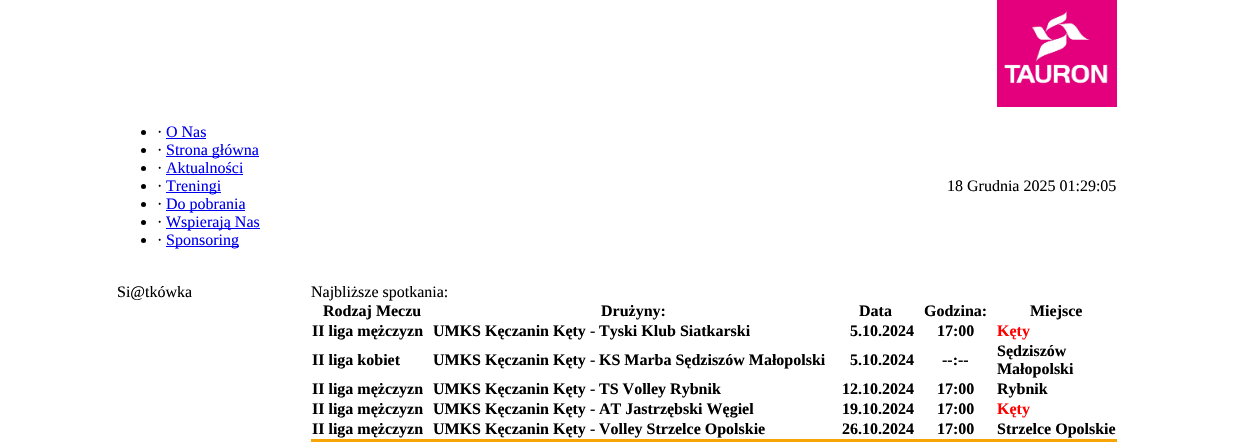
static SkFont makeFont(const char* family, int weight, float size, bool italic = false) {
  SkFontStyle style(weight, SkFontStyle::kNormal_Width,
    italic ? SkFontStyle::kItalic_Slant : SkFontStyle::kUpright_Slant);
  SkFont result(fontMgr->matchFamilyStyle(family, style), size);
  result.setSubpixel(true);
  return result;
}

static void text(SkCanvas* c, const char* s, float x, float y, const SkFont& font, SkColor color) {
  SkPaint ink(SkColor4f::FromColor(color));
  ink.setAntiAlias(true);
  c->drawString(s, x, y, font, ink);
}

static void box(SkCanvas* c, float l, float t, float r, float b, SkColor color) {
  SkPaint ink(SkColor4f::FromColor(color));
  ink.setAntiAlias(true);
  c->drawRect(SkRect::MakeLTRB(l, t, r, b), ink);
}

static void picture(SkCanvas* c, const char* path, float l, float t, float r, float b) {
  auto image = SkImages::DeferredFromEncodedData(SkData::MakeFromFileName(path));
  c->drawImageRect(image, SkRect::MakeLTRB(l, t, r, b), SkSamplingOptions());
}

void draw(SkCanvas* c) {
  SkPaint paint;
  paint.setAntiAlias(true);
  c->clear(0xffffffff);
  picture(c, "img_01.png", 997, 0, 1117, 107);
  paint.setColor(0xff000000);
  c->drawCircle(143.5f, 132.5f, 2.5f, paint);
  SkFont face1 = makeFont("Liberation Serif", 400, 16);
  text(c, "·", 157, 137, face1, 0xff000000);
  text(c, "O Nas", 166, 137, face1, 0xff0000ee);
  box(c, 166, 138, 206, 139, 0xff0000ee);
  c->drawCircle(143.5f, 150.5f, 2.5f, paint);
  text(c, "·", 157, 155, face1, 0xff000000);
  box(c, 166, 156, 259, 157, 0xff0000ee);
  text(c, "Strona główna", 166, 155, face1, 0xff0000ee);
  c->drawCircle(143.5f, 168.5f, 2.5f, paint);
  text(c, "·", 157, 173, face1, 0xff000000);
  text(c, "Aktualności", 166, 173, face1, 0xff0000ee);
  box(c, 166, 174, 243, 175, 0xff0000ee);
  c->drawCircle(143.5f, 186.5f, 2.5f, paint);
  text(c, "·", 157, 191, face1, 0xff000000);
  box(c, 166, 192, 221, 193, 0xff0000ee);
  text(c, "Treningi", 166, 191, face1, 0xff0000ee);
  c->drawCircle(143.5f, 204.5f, 2.5f, paint);
  text(c, "·", 157, 209, face1, 0xff000000);
  box(c, 166, 210, 245, 211, 0xff0000ee);
  text(c, "Do pobrania", 166, 209, face1, 0xff0000ee);
  c->drawCircle(143.5f, 222.5f, 2.5f, paint);
  text(c, "·", 157, 227, face1, 0xff000000);
  box(c, 166, 228, 260, 229, 0xff0000ee);
  text(c, "Wspierają Nas", 166, 227, face1, 0xff0000ee);
  c->drawCircle(143.5f, 240.5f, 2.5f, paint);
  text(c, "·", 157, 245, face1, 0xff000000);
  box(c, 166, 246, 239, 247, 0xff0000ee);
  text(c, "Sponsoring", 166, 245, face1, 0xff0000ee);
  text(c, "18 Grudnia 2025 01:29:05", 947, 191, face1, 0xff000000);
  text(c, "Si@tkówka", 117, 297, face1, 0xff000000);
  text(c, "Najbliższe spotkania:", 311, 297, face1, 0xff000000);
  SkFont face2 = makeFont("Liberation Serif", 700, 16);
  text(c, "Rodzaj Meczu", 323, 316, face2, 0xff000000);
  text(c, "Drużyny:", 601, 316, face2, 0xff000000);
  text(c, "Data", 859, 316, face2, 0xff000000);
  text(c, "Godzina:", 924, 316, face2, 0xff000000);
  text(c, "Miejsce", 1030, 316, face2, 0xff000000);
  text(c, "II liga mężczyzn", 312, 336, face2, 0xff000000);
  text(c, "UMKS Kęczanin Kęty", 433, 336, face2, 0xff000000);
  text(c, "-", 590, 336, face1, 0xff000000);
  text(c, "Tyski Klub Siatkarski", 599, 336, face2, 0xff000000);
  text(c, "5.10.2024", 850, 336, face2, 0xff000000);
  text(c, "17:00", 937, 336, face2, 0xff000000);
  text(c, "Kęty", 997, 336, face2, 0xffff0000);
  text(c, "II liga kobiet", 312, 365, face2, 0xff000000);
  text(c, "UMKS Kęczanin Kęty", 433, 365, face2, 0xff000000);
  text(c, "-", 590, 365, face1, 0xff000000);
  text(c, "KS Marba Sędziszów Małopolski", 599, 365, face2, 0xff000000);
  text(c, "5.10.2024", 850, 365, face2, 0xff000000);
  text(c, "--:--", 942, 365, face2, 0xff000000);
  text(c, "Sędziszów", 997, 356, face2, 0xff000000);
  text(c, "Małopolski", 997, 374, face2, 0xff000000);
  text(c, "II liga mężczyzn", 312, 394, face2, 0xff000000);
  text(c, "UMKS Kęczanin Kęty", 433, 394, face2, 0xff000000);
  text(c, "-", 590, 394, face1, 0xff000000);
  text(c, "TS Volley Rybnik", 599, 394, face2, 0xff000000);
  text(c, "12.10.2024", 842, 394, face2, 0xff000000);
  text(c, "17:00", 937, 394, face2, 0xff000000);
  text(c, "Rybnik", 997, 394, face2, 0xff000000);
  text(c, "II liga mężczyzn", 312, 414, face2, 0xff000000);
  text(c, "UMKS Kęczanin Kęty", 433, 414, face2, 0xff000000);
  text(c, "-", 590, 414, face1, 0xff000000);
  text(c, "AT Jastrzębski Węgiel", 599, 414, face2, 0xff000000);
  text(c, "19.10.2024", 842, 414, face2, 0xff000000);
  text(c, "17:00", 937, 414, face2, 0xff000000);
  text(c, "Kęty", 997, 414, face2, 0xffff0000);
  text(c, "II liga mężczyzn", 312, 434, face2, 0xff000000);
  text(c, "UMKS Kęczanin Kęty", 433, 434, face2, 0xff000000);
  text(c, "-", 590, 434, face1, 0xff000000);
  text(c, "Volley Strzelce Opolskie", 599, 434, face2, 0xff000000);
  text(c, "26.10.2024", 842, 434, face2, 0xff000000);
  text(c, "17:00", 937, 434, face2, 0xff000000);
  text(c, "Strzelce Opolskie", 997, 434, face2, 0xff000000);
  box(c, 311, 439, 1117, 442, 0xfff6a504);
}
